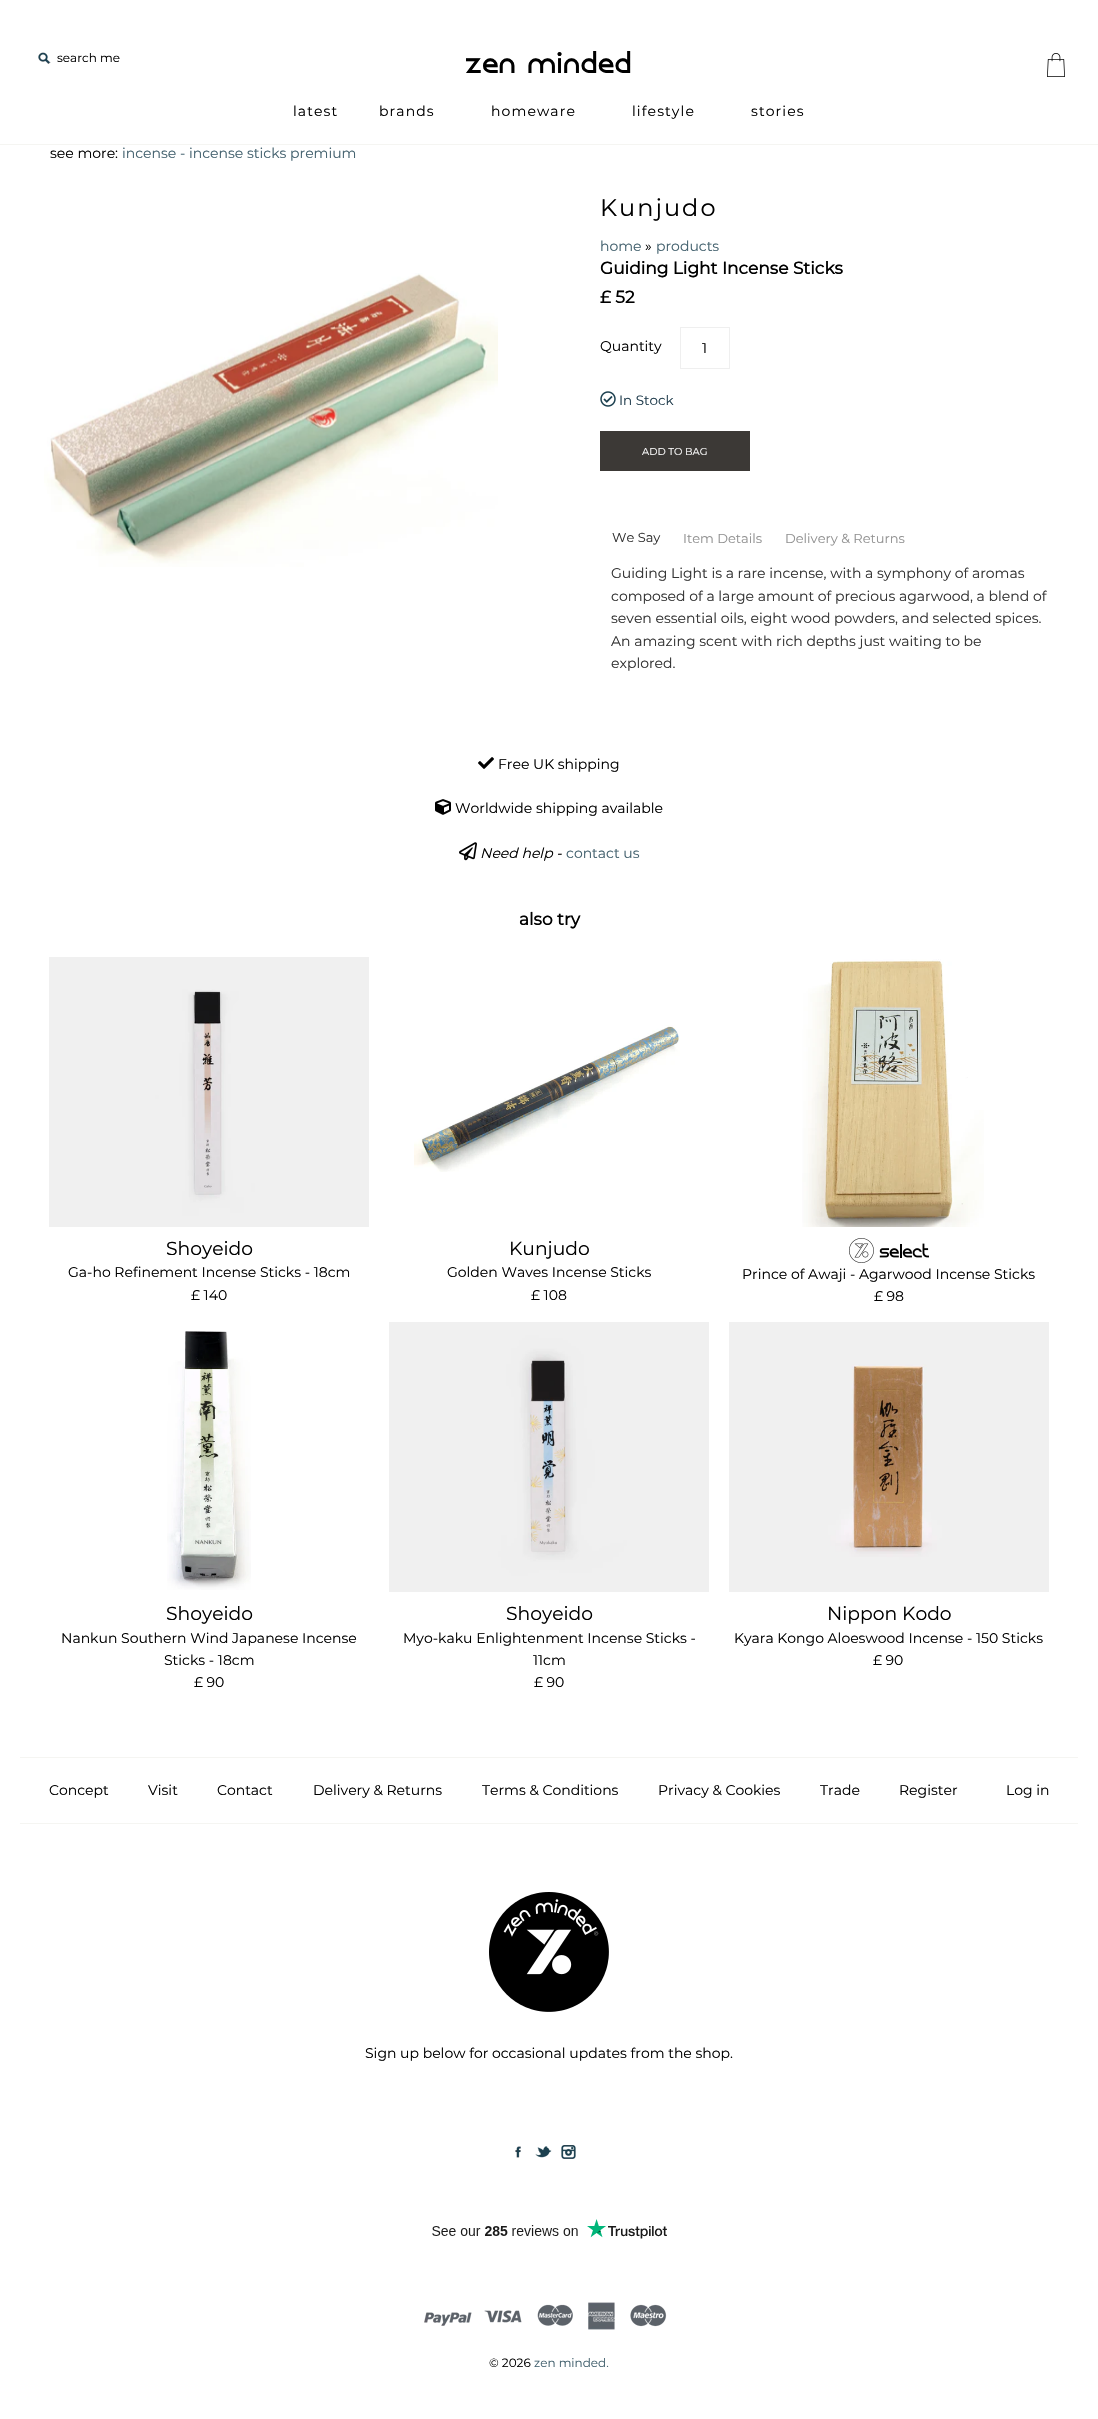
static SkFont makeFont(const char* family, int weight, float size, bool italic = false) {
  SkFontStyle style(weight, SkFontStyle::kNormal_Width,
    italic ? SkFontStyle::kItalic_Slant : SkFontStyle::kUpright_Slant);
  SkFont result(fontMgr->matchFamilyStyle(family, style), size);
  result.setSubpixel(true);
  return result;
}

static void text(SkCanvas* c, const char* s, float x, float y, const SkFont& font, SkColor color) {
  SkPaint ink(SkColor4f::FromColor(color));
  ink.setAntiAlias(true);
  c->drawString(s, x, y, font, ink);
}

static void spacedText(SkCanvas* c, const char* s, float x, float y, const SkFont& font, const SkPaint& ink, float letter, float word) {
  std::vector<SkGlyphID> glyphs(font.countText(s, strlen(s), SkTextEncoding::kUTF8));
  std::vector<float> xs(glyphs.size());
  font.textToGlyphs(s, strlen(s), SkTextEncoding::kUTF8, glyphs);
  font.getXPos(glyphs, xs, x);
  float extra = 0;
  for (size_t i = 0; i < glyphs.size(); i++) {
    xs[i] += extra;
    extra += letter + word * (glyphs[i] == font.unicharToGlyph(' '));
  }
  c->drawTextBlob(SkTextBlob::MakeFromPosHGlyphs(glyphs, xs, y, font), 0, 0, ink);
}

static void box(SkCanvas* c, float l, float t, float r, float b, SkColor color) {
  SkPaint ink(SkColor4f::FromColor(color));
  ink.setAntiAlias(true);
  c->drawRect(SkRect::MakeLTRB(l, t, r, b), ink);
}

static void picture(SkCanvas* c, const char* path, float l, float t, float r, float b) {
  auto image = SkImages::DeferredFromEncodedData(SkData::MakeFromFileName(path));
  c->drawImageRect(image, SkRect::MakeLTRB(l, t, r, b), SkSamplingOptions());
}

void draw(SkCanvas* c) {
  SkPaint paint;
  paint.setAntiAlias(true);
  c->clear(0xffffffff);
  picture(c, "img_01.png", 38, 52, 51, 64);
  SkFont face1 = makeFont("Montserrat", 100, 12);
  text(c, "search me", 57, 62, face1, 0xff000000);
  picture(c, "img_02.png", 1047, 53, 1065, 77);
  SkFont face2 = makeFont("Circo", 400, 23);
  text(c, "zen minded", 466, 73, face2, 0xff000000);
  box(c, 0, 144, 1098, 145, 0xfff5f5f2);
  SkFont face3 = makeFont("Montserrat", 100, 14);
  paint.setColor(0xff000000);
  spacedText(c, "latest", 293, 116, face3, paint, 1.1f, 0);
  spacedText(c, "brands", 379, 116, face3, paint, 1.1f, 0);
  spacedText(c, "homeware", 491, 116, face3, paint, 1.1f, 0);
  spacedText(c, "lifestyle", 632, 116, face3, paint, 1.1f, 0);
  spacedText(c, "stories", 751, 116, face3, paint, 1.1f, 0);
  text(c, "see more:", 50, 158, face3, 0xff000000);
  text(c, "incense - incense sticks premium", 122, 158, face3, 0xff43616e);
  picture(c, "img_03.png", 44, 273, 498, 567);
  SkFont face4 = makeFont("Montserrat", 100, 24);
  spacedText(c, "Kunjudo", 600, 216, face4, paint, 2, 0);
  text(c, "home", 600, 251, face3, 0xff43616e);
  text(c, "»", 645, 251, face3, 0xff000000);
  text(c, "products", 656, 251, face3, 0xff43616e);
  SkFont face5 = makeFont("Montserrat", 700, 17);
  text(c, "Guiding Light Incense Sticks", 600, 274, face5, 0xff000000);
  text(c, "£ 52", 600, 303, face5, 0xff000000);
  text(c, "Quantity", 600, 351, face3, 0xff000000);
  paint.setStyle(SkPaint::kStroke_Style);
  paint.setStrokeWidth(1);
  paint.setColor(0xffefefef);
  c->drawRect(SkRect::MakeLTRB(680.5f, 327.5f, 729.5f, 368.5f), paint);
  text(c, "1", 702, 353, face3, 0xff000000);
  picture(c, "img_04.png", 600, 391, 616, 407);
  SkFont face6 = makeFont("Montserrat", 100, 13.5f);
  text(c, "In Stock", 619, 405, face6, 0xff213d4d);
  box(c, 600, 431, 750, 471, 0xff3c3936);
  SkFont face7 = makeFont("Montserrat", 100, 10);
  text(c, "ADD TO BAG", 642, 455, face7, 0xfffefefe);
  SkFont face8 = makeFont("Montserrat", 100, 13);
  text(c, "We Say", 612, 542, face8, 0xff333333);
  text(c, "Item Details", 683, 543, face8, 0xff929292);
  text(c, "Delivery & Returns", 785, 543, face8, 0xff929292);
  text(c, "Guiding Light is a rare incense, with a symphony of aromas", 611, 578, face3, 0xff333333);
  text(c, "composed of a large amount of precious agarwood, a blend of", 611, 601, face3, 0xff333333);
  text(c, "seven essential oils, eight wood powders, and selected spices.", 611, 623, face3, 0xff333333);
  text(c, "An amazing scent with rich depths just waiting to be", 611, 646, face3, 0xff333333);
  text(c, "explored.", 611, 668, face3, 0xff333333);
  picture(c, "img_05.png", 478, 757, 494, 769);
  text(c, "Free UK shipping", 498, 769, face3, 0xff000000);
  picture(c, "img_06.png", 435, 799, 451, 815);
  text(c, "Worldwide shipping available", 455, 813, face3, 0xff000000);
  picture(c, "img_07.png", 459, 842, 477, 861);
  SkFont face9 = makeFont("Montserrat", 100, 14, true);
  text(c, "Need help -", 480, 858, face9, 0xff000000);
  text(c, "contact us", 566, 858, face3, 0xff43616e);
  text(c, "also try", 519, 925, face5, 0xff000000);
  picture(c, "img_08.png", 49, 957, 369, 1227);
  SkFont face10 = makeFont("Montserrat", 100, 18.75f);
  text(c, "Shoyeido", 166, 1255, face10, 0xff000000);
  text(c, "Ga-ho Refinement Incense Sticks - 18cm", 68, 1277, face3, 0xff000000);
  text(c, "£ 140", 191, 1300, face3, 0xff000000);
  picture(c, "img_09.png", 414, 1025, 680, 1172);
  text(c, "Kunjudo", 509, 1255, face10, 0xff000000);
  text(c, "Golden Waves Incense Sticks", 447, 1277, face3, 0xff000000);
  text(c, "£ 108", 531, 1300, face3, 0xff000000);
  picture(c, "img_10.png", 802, 959, 984, 1227);
  picture(c, "img_11.png", 849, 1238, 929, 1263);
  text(c, "Prince of Awaji - Agarwood Incense Sticks", 742, 1279, face3, 0xff000000);
  text(c, "£ 98", 874, 1301, face3, 0xff000000);
  picture(c, "img_12.png", 167, 1331, 251, 1590);
  text(c, "Shoyeido", 166, 1620, face10, 0xff000000);
  text(c, "Nankun Southern Wind Japanese Incense", 61, 1643, face3, 0xff000000);
  text(c, "Sticks - 18cm", 164, 1665, face3, 0xff000000);
  text(c, "£ 90", 194, 1687, face3, 0xff000000);
  picture(c, "img_13.png", 389, 1322, 709, 1592);
  text(c, "Shoyeido", 506, 1620, face10, 0xff000000);
  text(c, "Myo-kaku Enlightenment Incense Sticks -", 403, 1643, face3, 0xff000000);
  text(c, "11cm", 533, 1665, face3, 0xff000000);
  text(c, "£ 90", 534, 1687, face3, 0xff000000);
  picture(c, "img_14.png", 729, 1322, 1049, 1592);
  text(c, "Nippon Kodo", 827, 1620, face10, 0xff000000);
  text(c, "Kyara Kongo Aloeswood Incense - 150 Sticks", 734, 1643, face3, 0xff000000);
  text(c, "£ 90", 873, 1665, face3, 0xff000000);
  box(c, 20, 1757, 1078, 1758, 0xfff5f5f2);
  box(c, 20, 1823, 1078, 1824, 0xfff5f5f2);
  text(c, "Concept", 49, 1795, face3, 0xff000000);
  text(c, "Visit", 148, 1795, face3, 0xff000000);
  text(c, "Contact", 217, 1795, face3, 0xff000000);
  text(c, "Delivery & Returns", 313, 1795, face3, 0xff000000);
  text(c, "Terms & Conditions", 482, 1795, face3, 0xff000000);
  text(c, "Privacy & Cookies", 658, 1795, face3, 0xff000000);
  text(c, "Trade", 820, 1795, face3, 0xff000000);
  text(c, "Register", 899, 1795, face3, 0xff000000);
  text(c, "Log in", 1006, 1795, face3, 0xff000000);
  picture(c, "img_15.png", 489, 1892, 609, 2012);
  text(c, "Sign up below for occasional updates from the shop.", 365, 2058, face3, 0xff000000);
  picture(c, "img_16.png", 515, 2146, 521, 2158);
  picture(c, "img_17.png", 535, 2146, 552, 2158);
  picture(c, "img_18.png", 561, 2145, 576, 2159);
  picture(c, "img_19.png", 432, 2219, 667, 2239);
  picture(c, "img_20.png", 424, 2312, 472, 2326);
  picture(c, "img_21.png", 484, 2310, 522, 2323);
  picture(c, "img_22.png", 537, 2304, 573, 2326);
  picture(c, "img_23.png", 588, 2302, 615, 2330);
  picture(c, "img_24.png", 630, 2304, 667, 2327);
  text(c, "© 2026", 489, 2367, face1, 0xff000000);
  text(c, "zen minded.", 534, 2367, face1, 0xff43616e);
}
